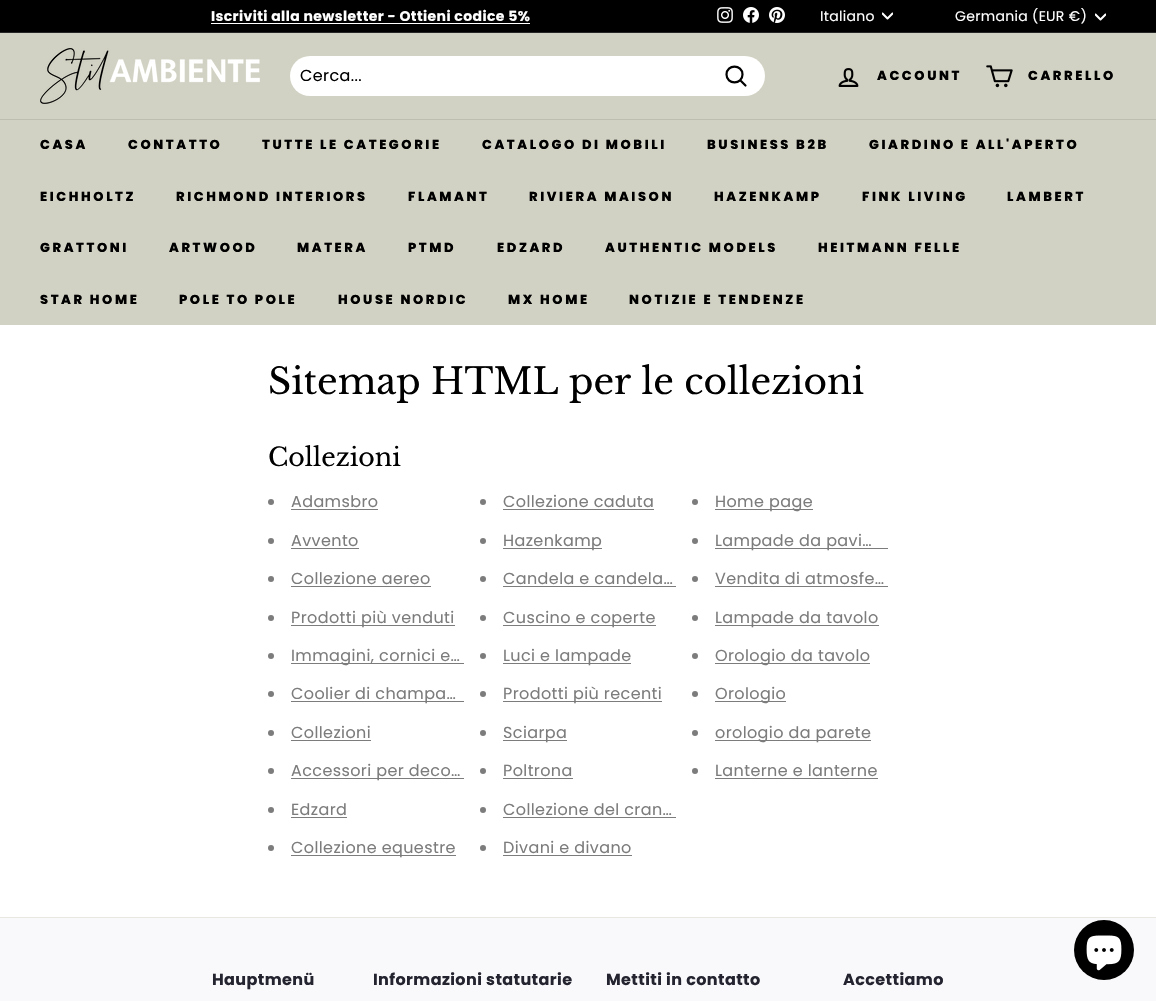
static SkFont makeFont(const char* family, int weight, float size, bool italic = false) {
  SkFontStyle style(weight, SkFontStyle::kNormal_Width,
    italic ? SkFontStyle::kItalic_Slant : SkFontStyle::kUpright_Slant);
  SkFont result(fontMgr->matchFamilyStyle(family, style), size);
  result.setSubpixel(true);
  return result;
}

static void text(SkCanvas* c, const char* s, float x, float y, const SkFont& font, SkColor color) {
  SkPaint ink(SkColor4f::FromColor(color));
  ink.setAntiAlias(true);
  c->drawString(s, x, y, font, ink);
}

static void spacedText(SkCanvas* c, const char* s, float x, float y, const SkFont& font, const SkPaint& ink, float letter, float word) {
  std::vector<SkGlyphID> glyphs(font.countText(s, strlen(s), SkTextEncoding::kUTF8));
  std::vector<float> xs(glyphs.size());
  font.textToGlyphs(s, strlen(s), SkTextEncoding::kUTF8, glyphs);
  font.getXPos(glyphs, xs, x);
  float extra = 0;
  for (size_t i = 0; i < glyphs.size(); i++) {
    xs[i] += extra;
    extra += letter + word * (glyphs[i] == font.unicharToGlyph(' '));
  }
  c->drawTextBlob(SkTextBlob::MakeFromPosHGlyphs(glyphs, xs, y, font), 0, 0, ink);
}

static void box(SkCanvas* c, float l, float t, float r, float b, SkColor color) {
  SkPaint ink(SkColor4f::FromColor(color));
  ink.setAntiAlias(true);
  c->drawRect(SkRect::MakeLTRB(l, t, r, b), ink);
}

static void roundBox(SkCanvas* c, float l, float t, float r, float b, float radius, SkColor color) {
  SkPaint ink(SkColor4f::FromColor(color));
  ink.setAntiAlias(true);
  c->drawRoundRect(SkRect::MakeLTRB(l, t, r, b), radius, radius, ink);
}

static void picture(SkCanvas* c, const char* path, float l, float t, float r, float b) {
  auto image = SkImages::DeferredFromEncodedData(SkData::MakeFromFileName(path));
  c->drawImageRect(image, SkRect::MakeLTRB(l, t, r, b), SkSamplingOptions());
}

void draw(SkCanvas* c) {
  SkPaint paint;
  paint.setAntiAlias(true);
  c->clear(0xffffffff);
  box(c, 0, 0, 1156, 32, 0xff000000);
  SkFont face1 = makeFont("Poppins", 700, 14);
  paint.setColor(0xffffffff);
  spacedText(c, "Iscriviti alla newsletter - Ottieni codice 5%", 211, 21, face1, paint, 0.4f, 0);
  box(c, 211, 23, 530, 24, 0xffffffff);
  picture(c, "img_01.png", 717, 7, 733, 23);
  picture(c, "img_02.png", 743, 7, 759, 23);
  picture(c, "img_03.png", 769, 7, 785, 23);
  SkFont face2 = makeFont("Poppins", 400, 14);
  spacedText(c, "Italiano", 820, 21, face2, paint, 0.3f, 0);
  c->save();
  c->clipRect(SkRect::MakeLTRB(882, 11, 893, 22));
  paint.setStyle(SkPaint::kStroke_Style);
  paint.setStrokeWidth(2);
  paint.setStrokeCap(SkPaint::kRound_Cap);
  paint.setStrokeJoin(SkPaint::kRound_Join);
  c->drawPath(SkPathBuilder().moveTo(882.5f, 13.5f).lineTo(887.5f, 18.5f).lineTo(892.5f, 13.5f).detach(), paint);
  c->restore();
  paint.setStyle(SkPaint::kFill_Style);
  spacedText(c, "Germania (EUR €)", 955, 21, face2, paint, 0.3f, 0);
  c->save();
  c->clipRect(SkRect::MakeLTRB(1095, 12, 1106, 23));
  paint.setStyle(SkPaint::kStroke_Style);
  c->drawPath(SkPathBuilder().moveTo(1095.5f, 14.5f).lineTo(1100.5f, 19.5f).lineTo(1105.5f, 14.5f).detach(), paint);
  c->restore();
  box(c, 0, 32, 1156, 33, 0xff262626);
  box(c, 0, 33, 1156, 119, 0xffd2d2c4);
  picture(c, "img_04.png", 40, 48, 260, 104);
  roundBox(c, 290, 56, 765, 96, 20, 0xffffffff);
  SkFont face3 = makeFont("Poppins", 400, 16);
  paint.setStyle(SkPaint::kFill_Style);
  paint.setColor(0xff000000);
  spacedText(c, "Cerca...", 300, 81, face3, paint, 0.4f, 0);
  paint.setStyle(SkPaint::kStroke_Style);
  paint.setStrokeWidth(2.2f);
  c->drawPath(SkPathBuilder().moveTo(742.5f, 74.5f).cubicTo(742.5f, 85, 726.5f, 85, 726.5f, 74.5f).cubicTo(726.5f, 64, 742.5f, 64, 742.5f, 74.5f).close().moveTo(745.5f, 85.5f).lineTo(740.5f, 80.5f).detach(), paint);
  picture(c, "img_05.png", 838, 68, 859, 87);
  SkFont face4 = makeFont("Poppins", 800, 13);
  paint.setStyle(SkPaint::kFill_Style);
  spacedText(c, "ACCOUNT", 877, 80, face4, paint, 2.6f, 0);
  picture(c, "img_06.png", 986, 65, 1013, 88);
  spacedText(c, "CARRELLO", 1028, 80, face4, paint, 2.6f, 0);
  box(c, 0, 119, 1156, 120, 0xffbdbdb0);
  box(c, 0, 120, 1156, 325, 0xffd2d2c4);
  spacedText(c, "CASA", 40, 149, face4, paint, 2.6f, 0);
  spacedText(c, "CONTATTO", 128, 149, face4, paint, 2.6f, 0);
  spacedText(c, "TUTTE LE CATEGORIE", 262, 149, face4, paint, 2.6f, 0);
  spacedText(c, "CATALOGO DI MOBILI", 482, 149, face4, paint, 2.6f, 0);
  spacedText(c, "BUSINESS B2B", 707, 149, face4, paint, 2.6f, 0);
  spacedText(c, "GIARDINO E ALL'APERTO", 869, 149, face4, paint, 2.6f, 0);
  spacedText(c, "EICHHOLTZ", 40, 201, face4, paint, 2.6f, 0);
  spacedText(c, "RICHMOND INTERIORS", 176, 201, face4, paint, 2.6f, 0);
  spacedText(c, "FLAMANT", 408, 201, face4, paint, 2.6f, 0);
  spacedText(c, "RIVIERA MAISON", 529, 201, face4, paint, 2.6f, 0);
  spacedText(c, "HAZENKAMP", 714, 201, face4, paint, 2.6f, 0);
  spacedText(c, "FINK LIVING", 862, 201, face4, paint, 2.6f, 0);
  spacedText(c, "LAMBERT", 1007, 201, face4, paint, 2.6f, 0);
  spacedText(c, "GRATTONI", 40, 252, face4, paint, 2.6f, 0);
  spacedText(c, "ARTWOOD", 169, 252, face4, paint, 2.6f, 0);
  spacedText(c, "MATERA", 297, 252, face4, paint, 2.6f, 0);
  spacedText(c, "PTMD", 408, 252, face4, paint, 2.6f, 0);
  spacedText(c, "EDZARD", 497, 252, face4, paint, 2.6f, 0);
  spacedText(c, "AUTHENTIC MODELS", 605, 252, face4, paint, 2.6f, 0);
  spacedText(c, "HEITMANN FELLE", 818, 252, face4, paint, 2.6f, 0);
  spacedText(c, "STAR HOME", 40, 304, face4, paint, 2.6f, 0);
  spacedText(c, "POLE TO POLE", 179, 304, face4, paint, 2.6f, 0);
  spacedText(c, "HOUSE NORDIC", 338, 304, face4, paint, 2.6f, 0);
  spacedText(c, "MX HOME", 508, 304, face4, paint, 2.6f, 0);
  spacedText(c, "NOTIZIE E TENDENZE", 629, 304, face4, paint, 2.6f, 0);
  SkFont face5 = makeFont("Libre Baskerville", 400, 36);
  text(c, "Sitemap HTML per le collezioni", 268, 394, face5, 0xff000000);
  SkFont face6 = makeFont("Libre Baskerville", 400, 25.25f);
  text(c, "Collezioni", 268, 466, face6, 0xff000000);
  paint.setColor(0xff7c7c7c);
  c->drawCircle(271, 502, 3, paint);
  spacedText(c, "Adamsbro", 291, 507, face3, paint, 0.4f, 0);
  box(c, 291, 509, 378, 510, 0xff7c7c7c);
  c->drawCircle(483, 502, 3, paint);
  spacedText(c, "Collezione caduta", 503, 507, face3, paint, 0.4f, 0);
  box(c, 503, 509, 654, 510, 0xff7c7c7c);
  c->drawCircle(695, 502, 3, paint);
  box(c, 715, 509, 813, 510, 0xff7c7c7c);
  spacedText(c, "Home page", 715, 507, face3, paint, 0.4f, 0);
  c->drawCircle(271, 541, 3, paint);
  spacedText(c, "Avvento", 291, 546, face3, paint, 0.4f, 0);
  box(c, 291, 548, 359, 549, 0xff7c7c7c);
  c->drawCircle(483, 541, 3, paint);
  box(c, 503, 548, 602, 549, 0xff7c7c7c);
  spacedText(c, "Hazenkamp", 503, 546, face3, paint, 0.4f, 0);
  c->drawCircle(695, 541, 3, paint);
  box(c, 715, 548, 888, 549, 0xff7c7c7c);
  spacedText(c, "Lampade da pavi…", 715, 546, face3, paint, 0.4f, 0);
  c->drawCircle(271, 579, 3, paint);
  spacedText(c, "Collezione aereo", 291, 584, face3, paint, 0.4f, 0);
  box(c, 291, 586, 431, 587, 0xff7c7c7c);
  c->drawCircle(483, 579, 3, paint);
  spacedText(c, "Candela e candela…", 503, 584, face3, paint, 0.4f, 0);
  box(c, 503, 586, 676, 587, 0xff7c7c7c);
  c->drawCircle(695, 579, 3, paint);
  spacedText(c, "Vendita di atmosfe…", 715, 584, face3, paint, 0.4f, 0);
  box(c, 715, 586, 888, 587, 0xff7c7c7c);
  c->drawCircle(271, 618, 3, paint);
  box(c, 291, 625, 455, 626, 0xff7c7c7c);
  spacedText(c, "Prodotti più venduti", 291, 623, face3, paint, 0.4f, 0);
  c->drawCircle(483, 618, 3, paint);
  box(c, 503, 625, 656, 626, 0xff7c7c7c);
  spacedText(c, "Cuscino e coperte", 503, 623, face3, paint, 0.4f, 0);
  c->drawCircle(695, 618, 3, paint);
  box(c, 715, 625, 879, 626, 0xff7c7c7c);
  spacedText(c, "Lampade da tavolo", 715, 623, face3, paint, 0.4f, 0);
  c->drawCircle(271, 656, 3, paint);
  box(c, 291, 663, 464, 664, 0xff7c7c7c);
  spacedText(c, "Immagini, cornici e…", 291, 661, face3, paint, 0.4f, 0);
  c->drawCircle(483, 656, 3, paint);
  box(c, 503, 663, 631, 664, 0xff7c7c7c);
  spacedText(c, "Luci e lampade", 503, 661, face3, paint, 0.4f, 0);
  c->drawCircle(695, 656, 3, paint);
  box(c, 715, 663, 870, 664, 0xff7c7c7c);
  spacedText(c, "Orologio da tavolo", 715, 661, face3, paint, 0.4f, 0);
  c->drawCircle(271, 694, 3, paint);
  box(c, 291, 701, 464, 702, 0xff7c7c7c);
  spacedText(c, "Coolier di champa…", 291, 699, face3, paint, 0.4f, 0);
  c->drawCircle(483, 694, 3, paint);
  box(c, 503, 701, 662, 702, 0xff7c7c7c);
  spacedText(c, "Prodotti più recenti", 503, 699, face3, paint, 0.4f, 0);
  c->drawCircle(695, 694, 3, paint);
  box(c, 715, 701, 786, 702, 0xff7c7c7c);
  spacedText(c, "Orologio", 715, 699, face3, paint, 0.4f, 0);
  c->drawCircle(271, 733, 3, paint);
  spacedText(c, "Collezioni", 291, 738, face3, paint, 0.4f, 0);
  box(c, 291, 740, 371, 741, 0xff7c7c7c);
  c->drawCircle(483, 733, 3, paint);
  box(c, 503, 740, 567, 741, 0xff7c7c7c);
  spacedText(c, "Sciarpa", 503, 738, face3, paint, 0.4f, 0);
  c->drawCircle(695, 733, 3, paint);
  box(c, 715, 740, 871, 741, 0xff7c7c7c);
  spacedText(c, "orologio da parete", 715, 738, face3, paint, 0.4f, 0);
  c->drawCircle(271, 771, 3, paint);
  box(c, 291, 778, 464, 779, 0xff7c7c7c);
  spacedText(c, "Accessori per deco…", 291, 776, face3, paint, 0.4f, 0);
  c->drawCircle(483, 771, 3, paint);
  spacedText(c, "Poltrona", 503, 776, face3, paint, 0.4f, 0);
  box(c, 503, 778, 573, 779, 0xff7c7c7c);
  c->drawCircle(695, 771, 3, paint);
  spacedText(c, "Lanterne e lanterne", 715, 776, face3, paint, 0.4f, 0);
  box(c, 715, 778, 878, 779, 0xff7c7c7c);
  c->drawCircle(271, 810, 3, paint);
  spacedText(c, "Edzard", 291, 815, face3, paint, 0.4f, 0);
  box(c, 291, 817, 347, 818, 0xff7c7c7c);
  c->drawCircle(483, 810, 3, paint);
  spacedText(c, "Collezione del cran…", 503, 815, face3, paint, 0.4f, 0);
  box(c, 503, 817, 676, 818, 0xff7c7c7c);
  c->drawCircle(271, 848, 3, paint);
  box(c, 291, 855, 456, 856, 0xff7c7c7c);
  spacedText(c, "Collezione equestre", 291, 853, face3, paint, 0.4f, 0);
  c->drawCircle(483, 848, 3, paint);
  spacedText(c, "Divani e divano", 503, 853, face3, paint, 0.4f, 0);
  box(c, 503, 855, 632, 856, 0xff7c7c7c);
  box(c, 0, 918, 1156, 1001, 0xfff9f9fb);
  box(c, 0, 917, 1156, 918, 0xffe8e8e1);
  SkFont face7 = makeFont("Poppins", 700, 16);
  paint.setColor(0xff242430);
  spacedText(c, "Hauptmenü", 212, 985, face7, paint, 0.4f, 0);
  spacedText(c, "Informazioni statutarie", 373, 985, face7, paint, 0.4f, 0);
  spacedText(c, "Mettiti in contatto", 606, 985, face7, paint, 0.4f, 0);
  spacedText(c, "Accettiamo", 843, 985, face7, paint, 0.4f, 0);
  paint.setColor(0xff000000);
  c->drawCircle(1104, 950, 30, paint);
  picture(c, "img_07.png", 1086, 935, 1122, 971);
}
